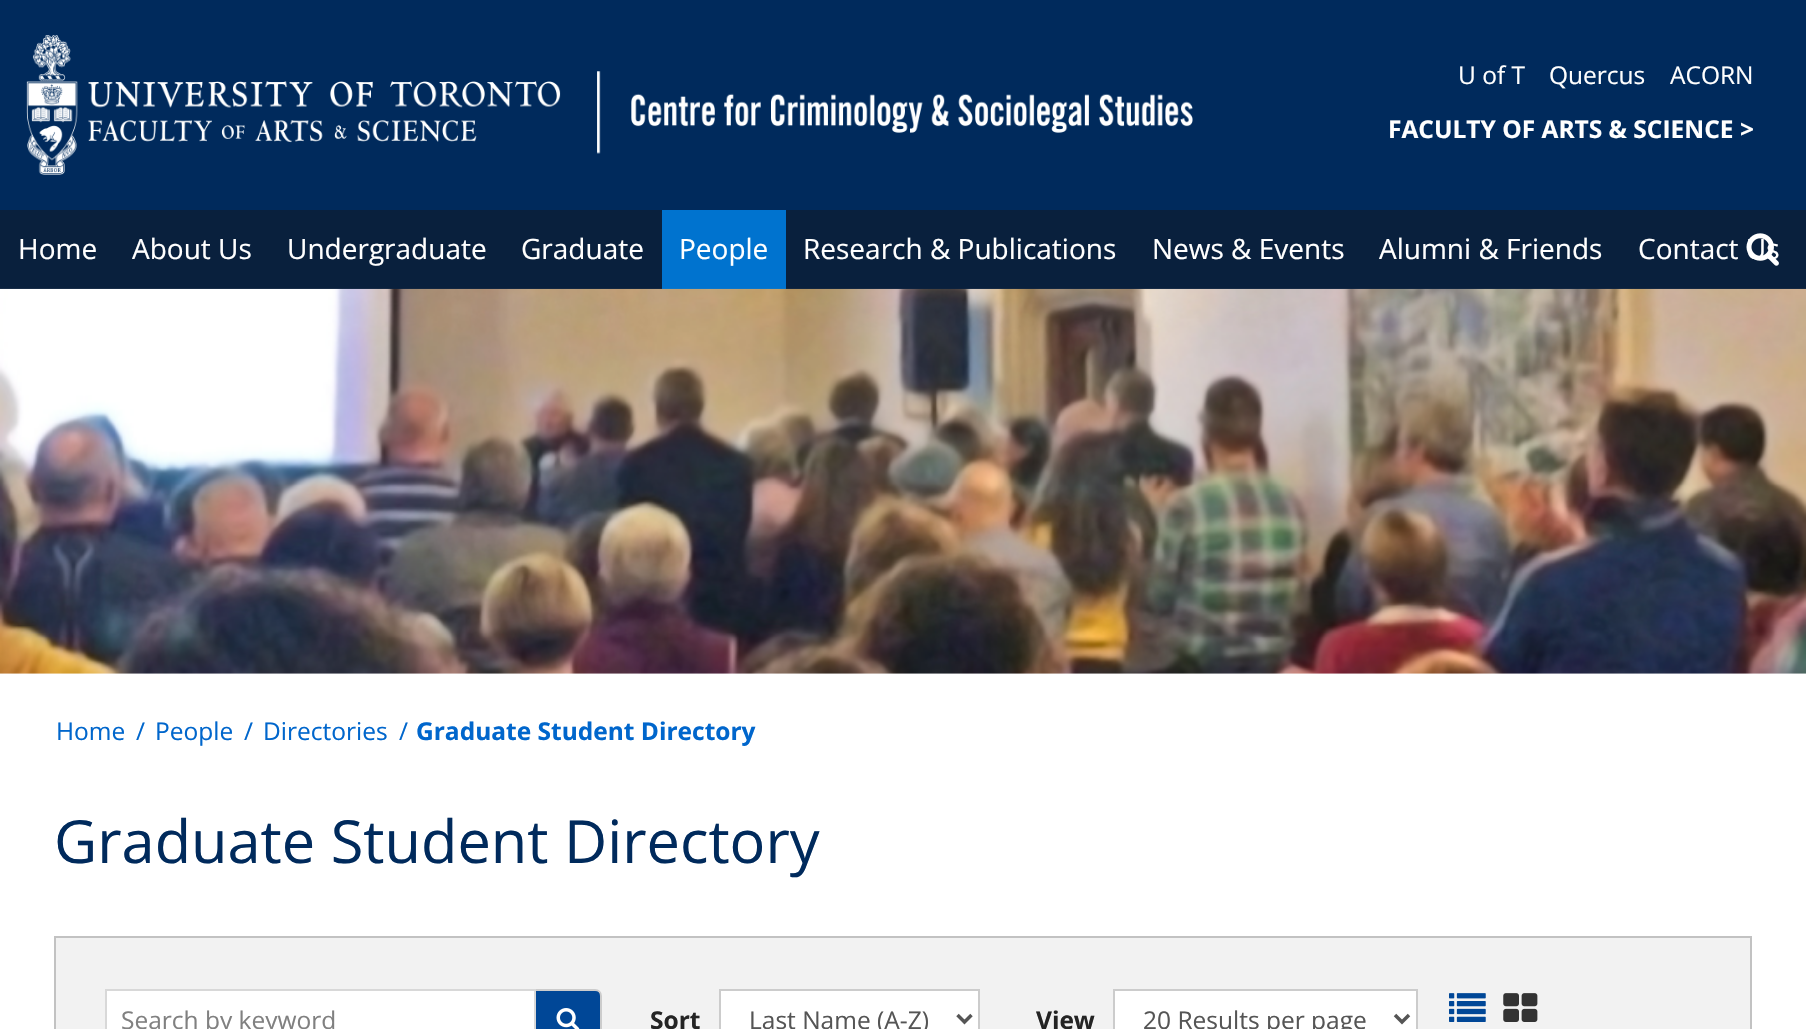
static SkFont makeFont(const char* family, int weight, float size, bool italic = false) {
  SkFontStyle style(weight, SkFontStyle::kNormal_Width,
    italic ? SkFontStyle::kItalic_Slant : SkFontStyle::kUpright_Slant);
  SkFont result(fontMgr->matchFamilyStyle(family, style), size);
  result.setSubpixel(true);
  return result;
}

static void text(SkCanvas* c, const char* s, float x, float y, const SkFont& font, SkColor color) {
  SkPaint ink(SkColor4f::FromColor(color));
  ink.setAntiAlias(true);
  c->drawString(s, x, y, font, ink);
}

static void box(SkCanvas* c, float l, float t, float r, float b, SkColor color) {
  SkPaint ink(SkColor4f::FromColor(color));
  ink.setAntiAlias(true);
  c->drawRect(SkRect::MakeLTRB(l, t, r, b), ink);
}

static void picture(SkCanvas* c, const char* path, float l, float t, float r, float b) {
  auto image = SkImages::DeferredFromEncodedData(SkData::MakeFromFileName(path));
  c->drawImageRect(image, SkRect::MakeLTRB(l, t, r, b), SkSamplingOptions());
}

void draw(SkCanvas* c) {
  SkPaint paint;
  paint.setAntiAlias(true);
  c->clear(0xffffffff);
  box(c, 0, 0, 1806, 210, 0xff002a5c);
  picture(c, "img_01.png", 26, 35, 1193, 175);
  SkFont face1 = makeFont("Open Sans", 400, 24.5f);
  text(c, "U of T", 1458, 84, face1, 0xffffffff);
  text(c, "Quercus", 1549, 84, face1, 0xffffffff);
  text(c, "ACORN", 1670, 84, face1, 0xffffffff);
  SkFont face2 = makeFont("Open Sans", 700, 24.5f);
  text(c, "FACULTY OF ARTS & SCIENCE >", 1388, 138, face2, 0xffffffff);
  box(c, 0, 210, 1806, 289, 0xff09203d);
  SkFont face3 = makeFont("Open Sans", 400, 28);
  text(c, "Contact Us", 1638, 259, face3, 0xffffffff);
  picture(c, "img_02.png", 1746, 233, 1779, 266);
  text(c, "Home", 18, 259, face3, 0xffffffff);
  text(c, "About Us", 132, 259, face3, 0xffffffff);
  text(c, "Undergraduate", 287, 259, face3, 0xffffffff);
  text(c, "Graduate", 521, 259, face3, 0xffffffff);
  box(c, 662, 210, 786, 289, 0xff0073cf);
  text(c, "People", 679, 259, face3, 0xffffffff);
  text(c, "Research & Publications", 803, 259, face3, 0xffffffff);
  text(c, "News & Events", 1152, 259, face3, 0xffffffff);
  text(c, "Alumni & Friends", 1379, 259, face3, 0xffffffff);
  picture(c, "img_03.png", 0, 288, 1806, 674);
  text(c, "Home", 56, 740, face1, 0xff0066cc);
  text(c, "/", 136, 740, face1, 0xff0066cc);
  text(c, "People", 155, 740, face1, 0xff0066cc);
  text(c, "/", 244, 740, face1, 0xff0066cc);
  text(c, "Directories", 263, 740, face1, 0xff0066cc);
  text(c, "/", 399, 740, face1, 0xff0066cc);
  text(c, "Graduate Student Directory", 416, 740, face2, 0xff0066cc);
  SkFont face4 = makeFont("Open Sans", 400, 59.5f);
  text(c, "Graduate Student Directory", 54, 863, face4, 0xff002a5c);
  paint.setColor(0xfff2f2f2);
  c->drawRect(SkRect::MakeLTRB(55, 937, 1751, 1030), paint);
  paint.setStyle(SkPaint::kStroke_Style);
  paint.setStrokeWidth(2);
  paint.setColor(0xffc2c2c2);
  c->drawRect(SkRect::MakeLTRB(55, 937, 1751, 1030), paint);
  paint.setStyle(SkPaint::kFill_Style);
  paint.setColor(0xff004797);
  c->drawPath(SkPathBuilder().moveTo(535, 990).lineTo(595, 990).cubicTo(598.5f, 990, 601, 992.5f, 601, 996).lineTo(601, 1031).cubicTo(601, 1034.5f, 598.5f, 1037, 595, 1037).lineTo(535, 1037).close().detach(), paint);
  paint.setStyle(SkPaint::kStroke_Style);
  paint.setColor(0xffcccccc);
  c->drawPath(SkPathBuilder().moveTo(535, 990).lineTo(595, 990).cubicTo(598.5f, 990, 601, 992.5f, 601, 996).lineTo(601, 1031).cubicTo(601, 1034.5f, 598.5f, 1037, 595, 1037).lineTo(535, 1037).close().detach(), paint);
  paint.setStyle(SkPaint::kFill_Style);
  paint.setColor(0xffffffff);
  c->drawRect(SkRect::MakeLTRB(106, 990, 535, 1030), paint);
  paint.setStyle(SkPaint::kStroke_Style);
  paint.setColor(0xffd8d8d8);
  c->drawRect(SkRect::MakeLTRB(106, 990, 535, 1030), paint);
  text(c, "Search by keyword", 121, 1029, face1, 0xff808080);
  picture(c, "img_04.png", 556, 1008, 580, 1029);
  text(c, "Sort", 650, 1029, face2, 0xff242424);
  paint.setStyle(SkPaint::kFill_Style);
  paint.setColor(0xffffffff);
  c->drawRect(SkRect::MakeLTRB(720, 990, 979, 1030), paint);
  paint.setStyle(SkPaint::kStroke_Style);
  paint.setColor(0xffcccccc);
  c->drawRect(SkRect::MakeLTRB(720, 990, 979, 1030), paint);
  paint.setStrokeWidth(3.5f);
  paint.setColor(0xff555555);
  c->drawPath(SkPathBuilder().moveTo(957.5f, 1015).lineTo(964.5f, 1022).lineTo(971.5f, 1015).detach(), paint);
  text(c, "Last Name (A-Z)", 749, 1029, face1, 0xff555555);
  text(c, "View", 1036, 1029, face2, 0xff242424);
  paint.setStyle(SkPaint::kFill_Style);
  paint.setColor(0xffffffff);
  c->drawRect(SkRect::MakeLTRB(1114, 990, 1417, 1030), paint);
  paint.setStyle(SkPaint::kStroke_Style);
  paint.setStrokeWidth(2);
  paint.setColor(0xffcccccc);
  c->drawRect(SkRect::MakeLTRB(1114, 990, 1417, 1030), paint);
  paint.setStrokeWidth(3.5f);
  paint.setColor(0xff555555);
  c->drawPath(SkPathBuilder().moveTo(1395, 1015).lineTo(1402, 1022).lineTo(1409, 1015).detach(), paint);
  text(c, "20 Results per page", 1143, 1029, face1, 0xff555555);
  picture(c, "img_05.png", 1449, 993, 1486, 1022);
  picture(c, "img_06.png", 1503, 993, 1538, 1022);
}
